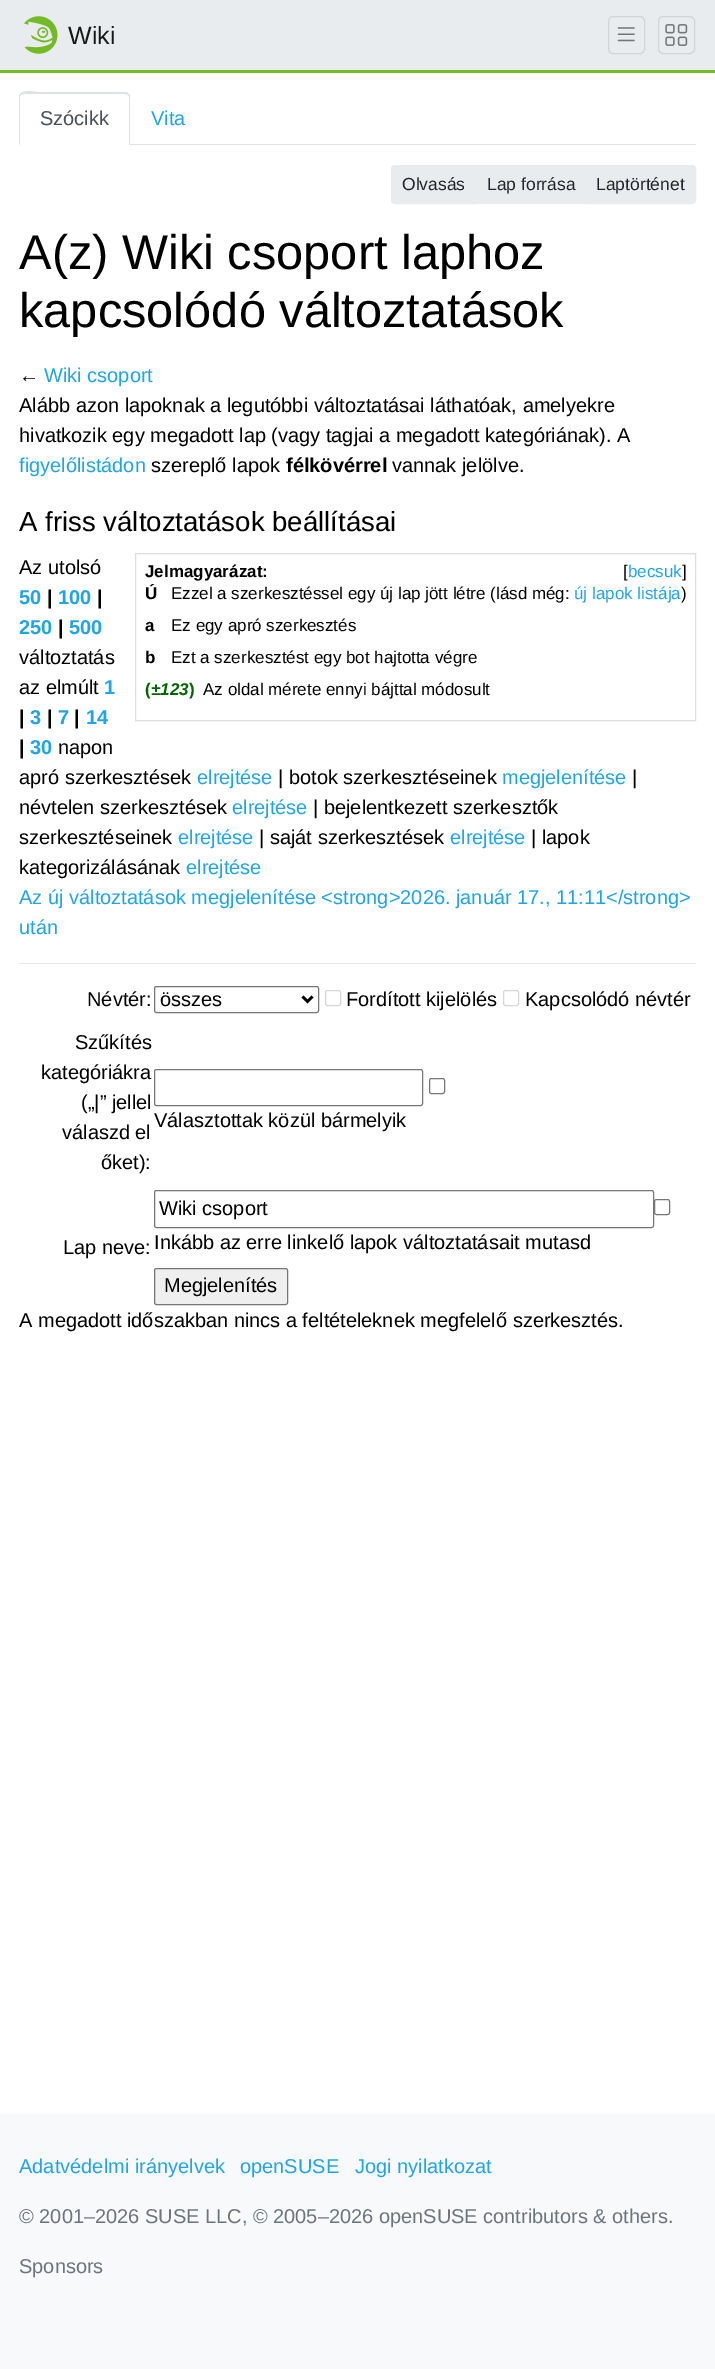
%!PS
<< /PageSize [715 2369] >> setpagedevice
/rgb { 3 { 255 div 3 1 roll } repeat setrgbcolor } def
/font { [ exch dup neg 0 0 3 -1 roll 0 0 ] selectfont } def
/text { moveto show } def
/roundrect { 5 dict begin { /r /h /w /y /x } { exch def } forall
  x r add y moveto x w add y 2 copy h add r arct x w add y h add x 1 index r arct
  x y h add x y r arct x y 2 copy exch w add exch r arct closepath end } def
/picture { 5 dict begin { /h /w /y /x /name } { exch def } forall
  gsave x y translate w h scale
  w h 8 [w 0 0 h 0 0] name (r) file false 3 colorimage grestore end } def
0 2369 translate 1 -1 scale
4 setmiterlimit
255 255 255 rgb
0 0 715 2369 rectfill
233 236 239 rgb
0 0 715 70 rectfill
115 186 37 rgb
0 70 715 3 rectfill
(img_01.rgb) 24 16 34 38 picture
210 212 215 rgb
608.5 16.5 36 37 4.5 roundrect stroke
(img_02.rgb) 617 27 18 15 picture
658.5 16.5 36 37 4.5 roundrect stroke
(img_03.rgb) 665 24 23 22 picture
222 226 230 rgb
130 144 566 1 rectfill
24 94 moveto -3 1 rlineto -1 -1 rlineto 4 -5 17 -2 19 -2 rcurveto 88 0 rlineto 2 2 rlineto -1 1 rlineto -3 -1 rlineto closepath fill
130 145 moveto 0 -47 rlineto 0 -2 0 -3 -1 -4 rcurveto -1 1 rlineto 1 2 rlineto 0 47 rlineto closepath fill
255 255 255 rgb
130 145 moveto -1 -1 rlineto -109 0 rlineto -1 1 rlineto closepath fill
222 226 230 rgb
19 145 moveto 0 -47 rlineto 0 -1 0 -3 1 -4 rcurveto 1 1 rlineto -1 2 rlineto 0 47 rlineto closepath fill
233 236 239 rgb
395 165.5 moveto 80.5 0 rlineto 0 38 rlineto -80.5 0 rlineto -2 0 -3.5 -1.5 -3.5 -3.5 rcurveto 0 -31 rlineto 0 -2 1.5 -3.5 3.5 -3.5 rcurveto closepath gsave fill grestore
stroke
476 165 109 39 rectfill
585.5 165.5 moveto 106.5 0 rlineto 2 0 3.5 1.5 3.5 3.5 rcurveto 0 31 rlineto 0 2 -1.5 3.5 -3.5 3.5 rcurveto -106.5 0 rlineto closepath gsave fill grestore
stroke
221 221 221 rgb
135.5 553.5 560 167 rectstroke
230 230 230 rgb
19 963 677 1 rectfill
118 118 118 rgb
154.5 986.5 164 26 2 roundrect stroke
0 0 0 rgb
2.5 setlinewidth
302.5 996.5 moveto 5 5 rlineto 5 -5 rlineto stroke
214 214 214 rgb
1 setlinewidth
325.5 990.5 15 15 2 roundrect stroke
503.5 990.5 15 15 2 roundrect stroke
118 118 118 rgb
154.5 1069.5 268 36 2 roundrect stroke
429.5 1078.5 15 15 2 roundrect stroke
154.5 1190.5 499 37 2 roundrect stroke
654.5 1199.5 15 15 2 roundrect stroke
239 239 239 rgb
154.5 1268.5 133 36 2 roundrect gsave fill grestore
118 118 118 rgb
stroke
248 249 250 rgb
0 2114 715 255 rectfill
/LiberationSans-Regular 25 font
23 24 24 rgb
(Wiki) 68 44 text
/LiberationSans-Regular 20 font
73 80 87 rgb
(Szócikk) 40 125 text
33 164 223 rgb
(Vita) 151 125 text
/LiberationSans-Regular 17.5 font
33 37 41 rgb
(Olvasás) 402 190 text
(Lap forrása) 487 190 text
(Laptörténet) 596 190 text
/LiberationSans-Regular 48.75 font
0 0 0 rgb
(A\(z\) Wiki csoport laphoz) 19 269 text
(kapcsolódó változtatások) 19 327 text
/LiberationSans-Regular 20 font
(←) 19 382 text
33 164 223 rgb
(Wiki csoport) 44 382 text
0 0 0 rgb
(Alább azon lapoknak a legutóbbi változtatásai láthatóak, amelyekre) 19 412 text
(hivatkozik egy megadott lap \(vagy tagjai a megadott kategóriának\). A) 19 442 text
33 164 223 rgb
(figyelőlistádon) 19 472 text
0 0 0 rgb
(szereplő lapok) 151 472 text
/LiberationSans-Bold 20 font
(félkövérrel) 286 472 text
/LiberationSans-Regular 20 font
(vannak jelölve.) 392 472 text
/LiberationSans-Regular 27.6 font
(A friss változtatások beállításai) 19 531 text
/LiberationSans-Regular 20 font
(Az utolsó) 19 574 text
/LiberationSans-Bold 17 font
(Jelmagyarázat:) 145 577 text
/LiberationSans-Regular 17 font
([) 623 577 text
33 164 223 rgb
(becsuk) 628 577 text
0 0 0 rgb
(]) 682 577 text
/LiberationSans-Bold 17 font
(Ú) 145 599 text
/LiberationSans-Regular 17 font
(Ezzel a szerkesztéssel egy új lap jött létre \(lásd még:) 171 599 text
33 164 223 rgb
(új lapok listája) 574 599 text
0 0 0 rgb
(\)) 681 599 text
/LiberationSans-Bold 17 font
(a) 145 631 text
/LiberationSans-Regular 17 font
(Ez egy apró szerkesztés) 171 631 text
/LiberationSans-Bold 17 font
(b) 145 663 text
/LiberationSans-Regular 17 font
(Ezt a szerkesztést egy bot hajtotta végre) 171 663 text
/LiberationSans-Bold 17 font
0 100 0 rgb
(\() 145 695 text
/LiberationSans-BoldItalic 17 font
(±123) 151 695 text
/LiberationSans-Bold 17 font
(\)) 189 695 text
/LiberationSans-Regular 17 font
0 0 0 rgb
(Az oldal mérete ennyi bájttal módosult) 203 695 text
/LiberationSans-Bold 20 font
33 164 223 rgb
(50) 19 604 text
0 0 0 rgb
(|) 47 604 text
33 164 223 rgb
(100) 58 604 text
0 0 0 rgb
(|) 97 604 text
33 164 223 rgb
(250) 19 634 text
0 0 0 rgb
(|) 58 634 text
33 164 223 rgb
(500) 69 634 text
/LiberationSans-Regular 20 font
0 0 0 rgb
(változtatás) 19 664 text
(az elmúlt) 19 694 text
/LiberationSans-Bold 20 font
33 164 223 rgb
(1) 104 694 text
0 0 0 rgb
(|) 19 724 text
33 164 223 rgb
(3) 30 724 text
0 0 0 rgb
(|) 47 724 text
33 164 223 rgb
(7) 58 724 text
0 0 0 rgb
(|) 74 724 text
33 164 223 rgb
(14) 86 724 text
0 0 0 rgb
(|) 19 754 text
33 164 223 rgb
(30) 30 754 text
/LiberationSans-Regular 20 font
0 0 0 rgb
(napon) 58 754 text
(apró szerkesztések) 19 784 text
33 164 223 rgb
(elrejtése) 197 784 text
0 0 0 rgb
(| botok szerkesztéseinek) 278 784 text
33 164 223 rgb
(megjelenítése) 502 784 text
0 0 0 rgb
(|) 632 784 text
(névtelen szerkesztések) 19 814 text
33 164 223 rgb
(elrejtése) 232 814 text
0 0 0 rgb
(| bejelentkezett szerkesztők) 313 814 text
(szerkesztéseinek) 19 844 text
33 164 223 rgb
(elrejtése) 178 844 text
0 0 0 rgb
(| saját szerkesztések) 259 844 text
33 164 223 rgb
(elrejtése) 450 844 text
0 0 0 rgb
(| lapok) 531 844 text
(kategorizálásának) 19 874 text
33 164 223 rgb
(elrejtése) 186 874 text
(Az új változtatások megjelenítése <strong>2026. január 17., 11:11</strong>) 19 904 text
(után) 19 934 text
0 0 0 rgb
(Névtér:) 87 1006 text
(összes) 160 1006 text
(Fordított kijelölés) 346 1006 text
(Kapcsolódó névtér) 525 1006 text
(Szűkítés) 75 1049 text
(kategóriákra) 41 1079 text
(\(„|” jellel) 81 1109 text
(válaszd el) 62 1139 text
(őket\):) 101 1169 text
(Választottak közül bármelyik) 154 1127 text
(Lap neve:) 63 1254 text
(Wiki csoport) 159 1215 text
(Inkább az erre linkelő lapok változtatásait mutasd) 154 1249 text
(Megjelenítés) 164 1292 text
(A megadott időszakban nincs a feltételeknek megfelelő szerkesztés.) 19 1327 text
33 164 223 rgb
(Adatvédelmi irányelvek) 19 2173 text
(openSUSE) 240 2173 text
(Jogi nyilatkozat) 355 2173 text
108 117 125 rgb
(© 2001–2026 SUSE LLC, © 2005–2026 openSUSE contributors & others.) 19 2223 text
(Sponsors) 19 2273 text
showpage
